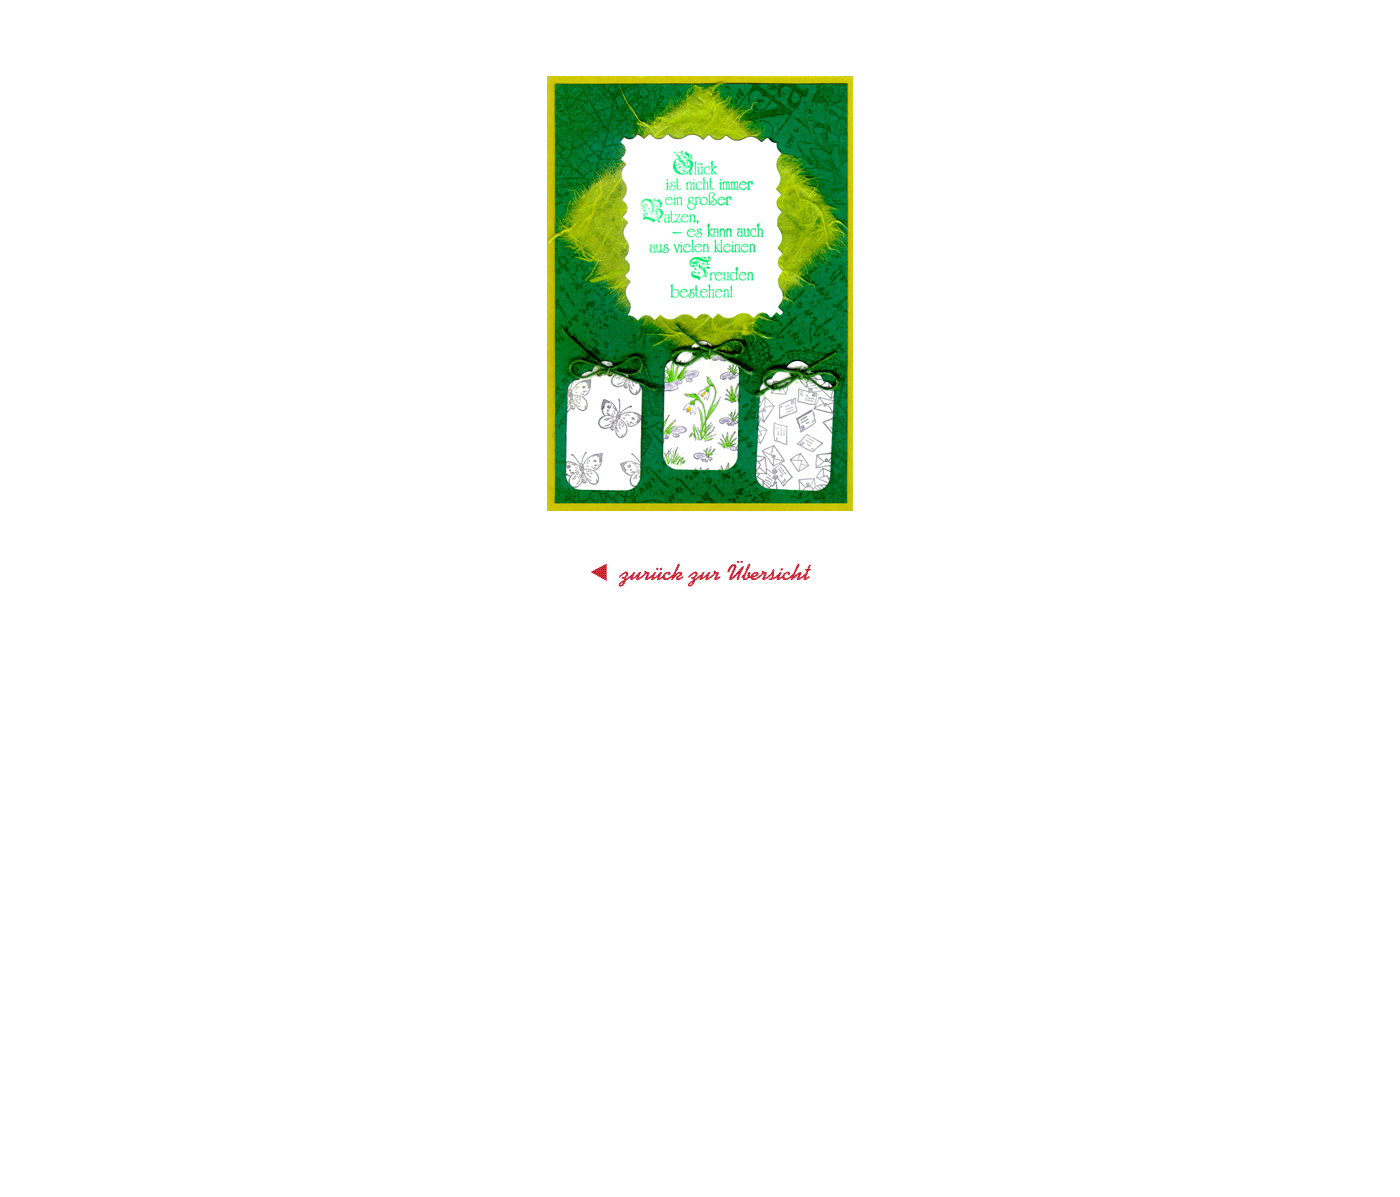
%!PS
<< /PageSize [1400 1197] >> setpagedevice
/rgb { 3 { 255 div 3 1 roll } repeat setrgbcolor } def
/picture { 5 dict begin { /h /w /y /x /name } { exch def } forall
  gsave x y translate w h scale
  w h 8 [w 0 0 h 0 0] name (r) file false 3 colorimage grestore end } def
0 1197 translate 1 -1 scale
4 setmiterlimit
255 255 255 rgb
0 0 1400 1197 rectfill
(img_01.rgb) 547 76 306 435 picture
(img_02.rgb) 591 561 220 26 picture
showpage
